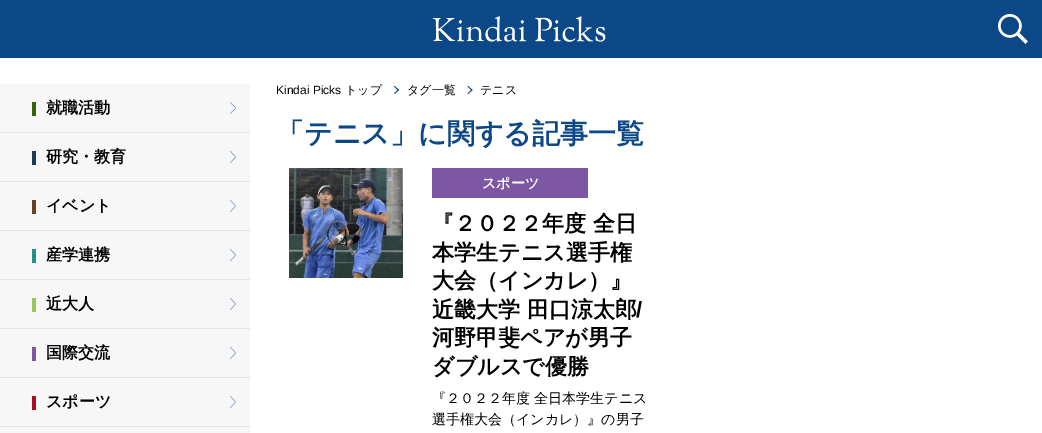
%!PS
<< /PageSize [1042 433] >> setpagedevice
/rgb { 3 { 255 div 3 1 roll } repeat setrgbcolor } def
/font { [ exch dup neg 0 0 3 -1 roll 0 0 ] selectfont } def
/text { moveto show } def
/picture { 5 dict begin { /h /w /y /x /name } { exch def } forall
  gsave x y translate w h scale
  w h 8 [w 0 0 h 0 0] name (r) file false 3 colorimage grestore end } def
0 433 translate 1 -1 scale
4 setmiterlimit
255 255 255 rgb
0 0 1042 433 rectfill
12 71 136 rgb
0 0 1042 58 rectfill
(img_01.rgb) 432 16 174 26 picture
(img_02.rgb) 998 14 30 30 picture
247 247 247 rgb
0 84 250 349 rectfill
228 228 228 rgb
0 132 250 1 rectfill
(img_03.rgb) 230 102 6 12 picture
56 99 4 rgb
32 102 4 14 rectfill
228 228 228 rgb
0 181 250 1 rectfill
(img_03.rgb) 230 151 6 12 picture
28 59 92 rgb
32 151 4 14 rectfill
228 228 228 rgb
0 230 250 1 rectfill
(img_03.rgb) 230 200 6 12 picture
103 65 38 rgb
32 200 4 14 rectfill
228 228 228 rgb
0 279 250 1 rectfill
(img_03.rgb) 230 249 6 12 picture
30 146 134 rgb
32 249 4 14 rectfill
228 228 228 rgb
0 328 250 1 rectfill
(img_03.rgb) 230 298 6 12 picture
150 199 87 rgb
32 298 4 14 rectfill
228 228 228 rgb
0 377 250 1 rectfill
(img_03.rgb) 230 347 6 12 picture
125 87 164 rgb
32 347 4 14 rectfill
228 228 228 rgb
0 426 250 1 rectfill
(img_03.rgb) 230 396 6 12 picture
168 13 35 rgb
32 396 4 14 rectfill
12 71 136 rgb
394 86.5 moveto 0.5 -0.5 rlineto 4.5 4 rlineto -1 0.5 rlineto closepath fill
394 93.5 moveto 4 -4 rlineto 1 0.5 rlineto -4.5 4 rlineto closepath fill
467.5 86.5 moveto 0.5 -0.5 rlineto 4.5 4 rlineto -1 0.5 rlineto closepath fill
467.5 93.5 moveto 4 -4 rlineto 1 0.5 rlineto -4.5 4 rlineto closepath fill
(img_04.rgb) 289 168 114 110 picture
125 87 164 rgb
432 168 156 30 rectfill
/WenQuanYiZenHei-Bold 16 font
0 0 0 rgb
(就職活動) 46 113 text
(研究・教育) 46 162 text
(イベント) 46 211 text
(産学連携) 46 260 text
(近大人) 46 309 text
(国際交流) 46 358 text
(スポーツ) 46 407 text
/LiberationSans-Regular 12 font
(Kindai Picks) 276 94 text
/WenQuanYiZenHei-Medium 12 font
(トップ) 345 94 text
(タグ一覧) 407 94 text
(テニス) 480 94 text
/WenQuanYiZenHei-Bold 28 font
12 71 136 rgb
(「テニス」に関する記事一覧) 276 143 text
/WenQuanYiZenHei-Bold 14 font
255 255 255 rgb
(スポーツ) 482 188 text
/WenQuanYiZenHei-Bold 22 font
0 0 0 rgb
(『２０２２年度 全日) 432 231 text
(本学生テニス選手権) 432 260 text
(大会（インカレ）』) 432 288 text
(近畿大学 田口涼太郎) 432 317 text
/LiberationSans-Bold 22 font
(/) 636 317 text
/WenQuanYiZenHei-Bold 22 font
(河野甲斐ペアが男子) 432 345 text
(ダブルスで優勝) 432 374 text
/WenQuanYiZenHei-Medium 14 font
(『２０２２年度 全日本学生テニス) 432 403 text
(選手権大会（インカレ）』の男子) 432 424 text
showpage
